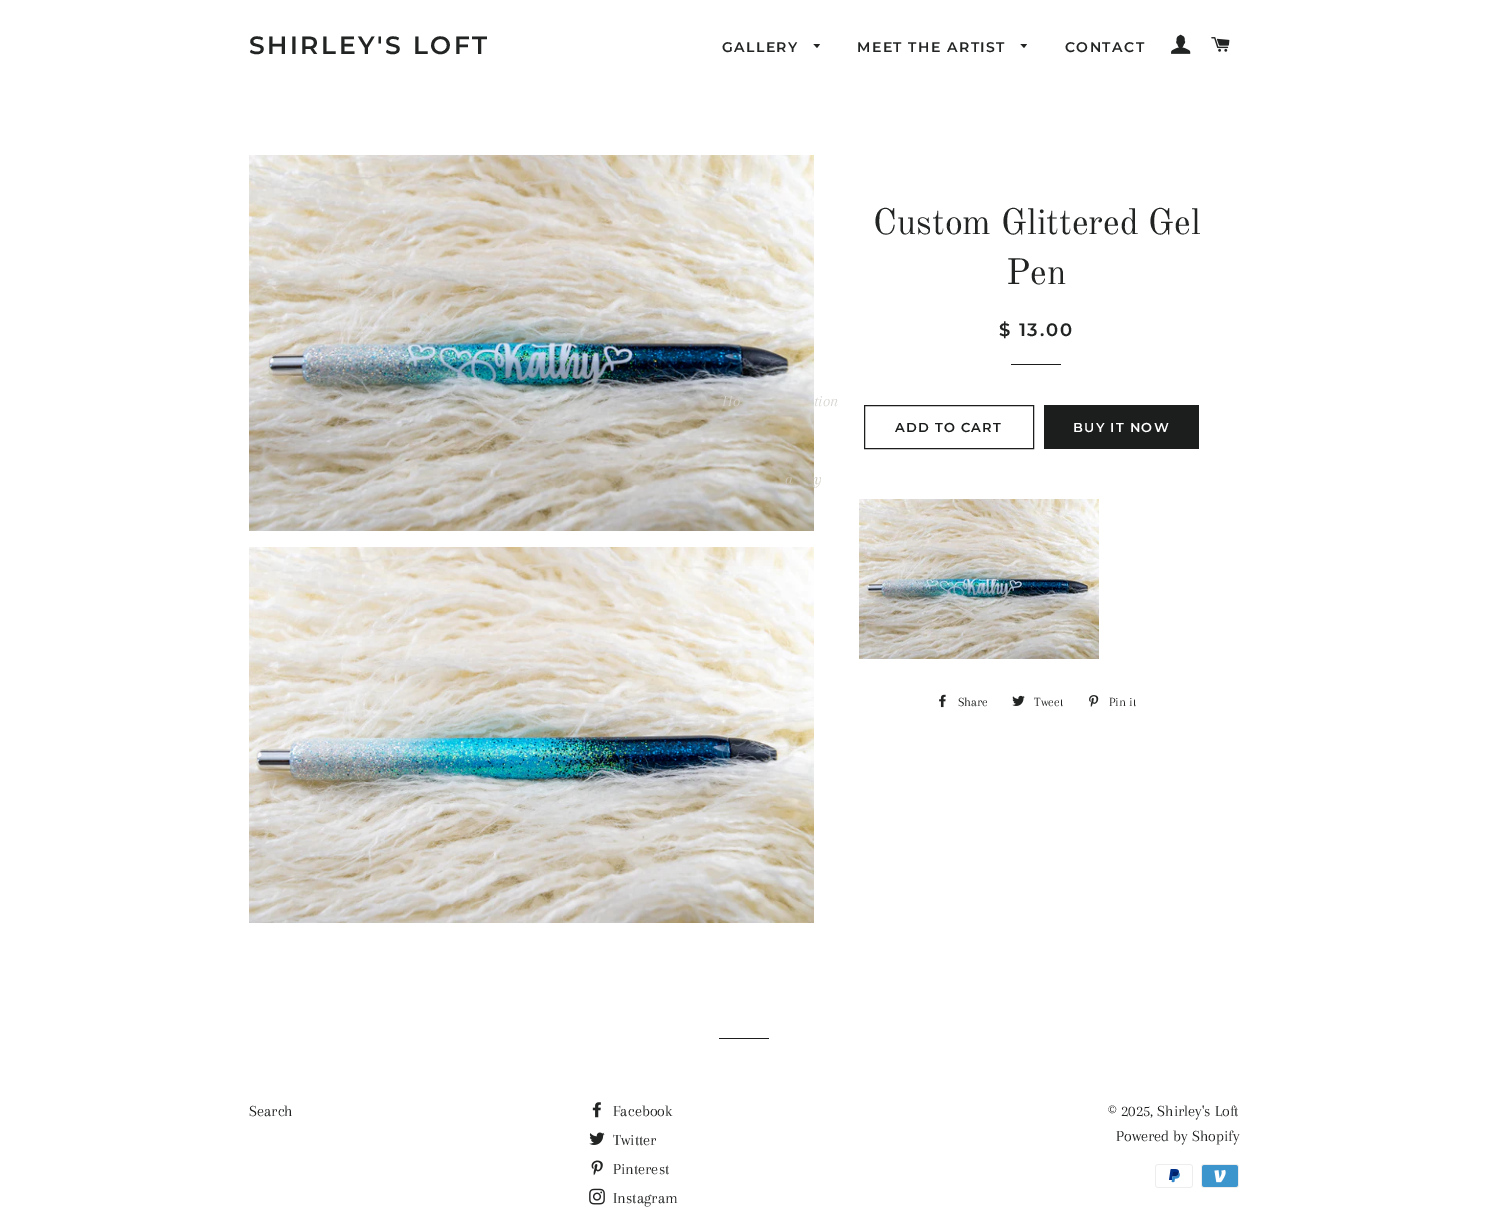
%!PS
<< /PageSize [1488 1211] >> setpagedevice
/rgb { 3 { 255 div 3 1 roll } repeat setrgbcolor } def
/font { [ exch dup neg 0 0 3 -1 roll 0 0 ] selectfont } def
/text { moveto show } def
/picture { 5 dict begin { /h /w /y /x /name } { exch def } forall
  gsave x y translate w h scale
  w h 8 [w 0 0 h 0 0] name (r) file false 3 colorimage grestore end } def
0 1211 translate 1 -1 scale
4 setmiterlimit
255 255 255 rgb
0 0 1488 1211 rectfill
34 35 35 rgb
813.5 44 moveto 3.5 4 rlineto 3 -4 rlineto closepath fill
1020.5 44 moveto 3.5 4 rlineto 3 -4 rlineto closepath fill
(img_01.rgb) 1171 34 20 20 picture
(img_02.rgb) 1211 37 19 15 picture
(img_03.rgb) 249 155 565 376 picture
(img_04.rgb) 249 547 565 376 picture
28 29 29 rgb
1011 364 50 1 rectfill
864.5 405.5 169 43 rectstroke
1044 405 155 44 rectfill
(img_05.rgb) 859 499 240 160 picture
(img_06.rgb) 939 694 7 14 picture
(img_07.rgb) 1012 695 13 11 picture
(img_08.rgb) 1089 695 10 12 picture
719 1038 50 1 rectfill
(img_09.rgb) 592 1102 9 16 picture
(img_10.rgb) 589 1132 16 13 picture
(img_11.rgb) 591 1160 12 16 picture
(img_12.rgb) 589 1188 16 17 picture
(img_13.rgb) 1155 1164 38 24 picture
(img_14.rgb) 1201 1164 38 24 picture
/Montserrat-SemiBold 25 font
34 35 35 rgb
249 54 moveto 2.5 0 (SHIRLEY'S LOFT) ashow
/Montserrat-SemiBold 14 font
722 52 moveto 1.4 0 (GALLERY) ashow
/Arapey-Italic 16 font
213 211 206 rgb
(Ho) 722 406 text
(tion) 814 406 text
203 198 186 rgb
(a) 785 484 text
(y) 814 484 text
/Montserrat-SemiBold 14 font
34 35 35 rgb
857 52 moveto 1.4 0 (MEET THE ARTIST) ashow
1065 52 moveto 1.4 0 (CONTACT) ashow
/OldStandardTT-Regular 36 font
(Custom Glittered Gel) 873 234 text
(Pen) 1006 284 text
/Montserrat-SemiBold 18 font
999 336 moveto 1.75 0 ($ 13.00) ashow
/Montserrat-SemiBold 13 font
28 29 29 rgb
895 432 moveto 1.25 0 (ADD TO CART) ashow
255 255 255 rgb
1073 432 moveto 1.25 0 (BUY IT NOW) ashow
/Arapey-Regular 13 font
34 35 35 rgb
(Share) 958 706 text
(Tweet) 1034 706 text
(Pin it) 1109 706 text
/Arapey-Regular 16 font
(Search) 249 1116 text
(Facebook) 613 1116 text
(Twitter) 613 1145 text
(Pinterest) 613 1174 text
(Instagram) 613 1203 text
(© 2025, Shirley's Loft) 1108 1116 text
(Powered by Shopify) 1116 1141 text
showpage
